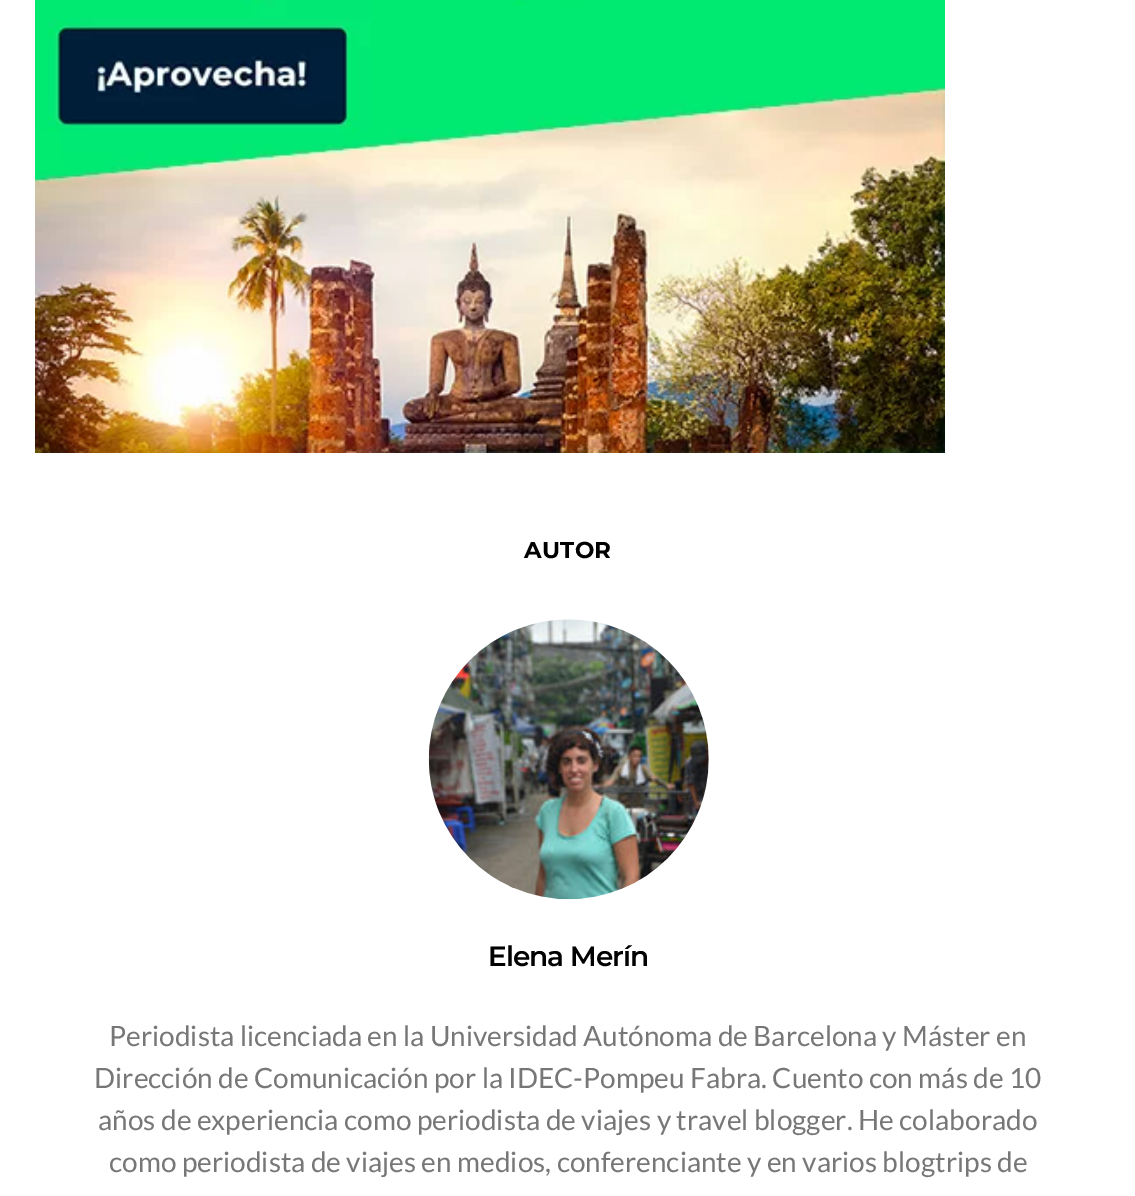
%!PS
<< /PageSize [1135 1196] >> setpagedevice
/rgb { 3 { 255 div 3 1 roll } repeat setrgbcolor } def
/font { [ exch dup neg 0 0 3 -1 roll 0 0 ] selectfont } def
/text { moveto show } def
/picture { 5 dict begin { /h /w /y /x /name } { exch def } forall
  gsave x y translate w h scale
  w h 8 [w 0 0 h 0 0] name (r) file false 3 colorimage grestore end } def
0 1196 translate 1 -1 scale
4 setmiterlimit
255 255 255 rgb
0 0 1135 1196 rectfill
(img_01.rgb) 35 0 910 453 picture
(img_02.rgb) 428 619 281 281 picture
/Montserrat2-Thin 23 font
0 0 0 rgb
524 558 moveto 0.25 0 (AUTOR) ashow
/Montserrat-Thin 28 font
488 966 moveto -1 0 (Elena Merín) ashow
/Lato-Regular 28 font
119 119 119 rgb
(Periodista licenciada en la Universidad Autónoma de Barcelona y Máster en) 109 1046 text
(Dirección de Comunicación por la IDEC-Pompeu Fabra. Cuento con más de 10) 94 1088 text
(años de experiencia como periodista de viajes y travel blogger. He colaborado) 98 1130 text
(como periodista de viajes en medios, conferenciante y en varios blogtrips de) 109 1172 text
showpage
